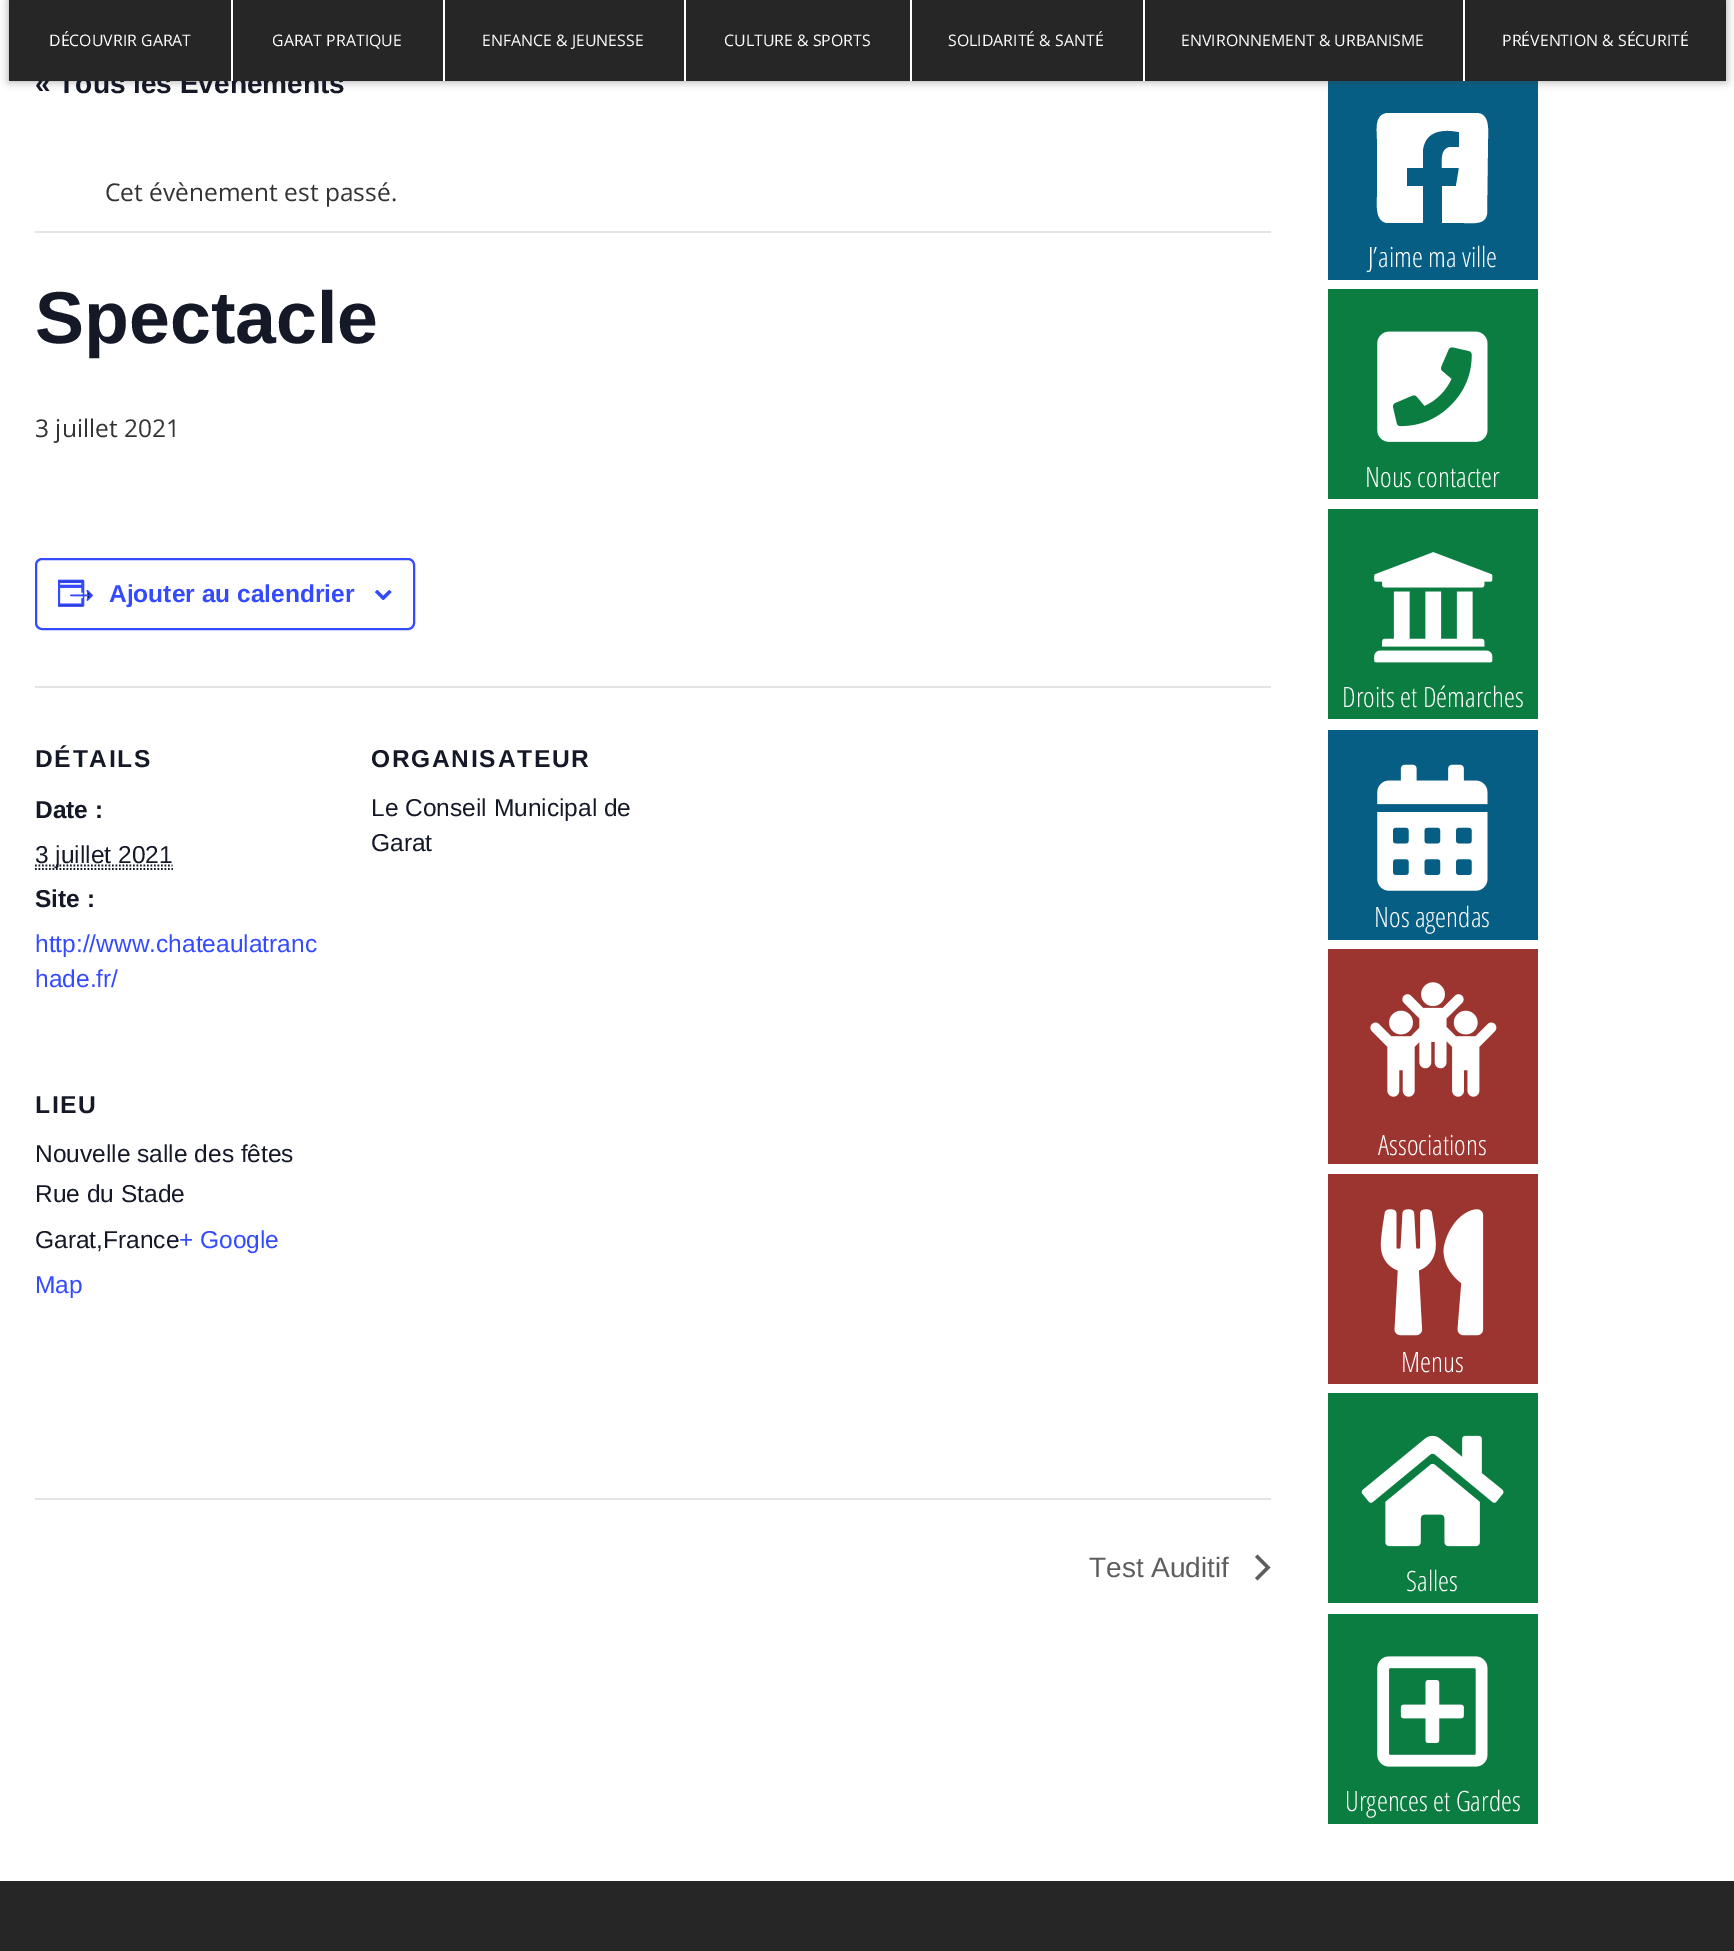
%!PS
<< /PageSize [1734 1951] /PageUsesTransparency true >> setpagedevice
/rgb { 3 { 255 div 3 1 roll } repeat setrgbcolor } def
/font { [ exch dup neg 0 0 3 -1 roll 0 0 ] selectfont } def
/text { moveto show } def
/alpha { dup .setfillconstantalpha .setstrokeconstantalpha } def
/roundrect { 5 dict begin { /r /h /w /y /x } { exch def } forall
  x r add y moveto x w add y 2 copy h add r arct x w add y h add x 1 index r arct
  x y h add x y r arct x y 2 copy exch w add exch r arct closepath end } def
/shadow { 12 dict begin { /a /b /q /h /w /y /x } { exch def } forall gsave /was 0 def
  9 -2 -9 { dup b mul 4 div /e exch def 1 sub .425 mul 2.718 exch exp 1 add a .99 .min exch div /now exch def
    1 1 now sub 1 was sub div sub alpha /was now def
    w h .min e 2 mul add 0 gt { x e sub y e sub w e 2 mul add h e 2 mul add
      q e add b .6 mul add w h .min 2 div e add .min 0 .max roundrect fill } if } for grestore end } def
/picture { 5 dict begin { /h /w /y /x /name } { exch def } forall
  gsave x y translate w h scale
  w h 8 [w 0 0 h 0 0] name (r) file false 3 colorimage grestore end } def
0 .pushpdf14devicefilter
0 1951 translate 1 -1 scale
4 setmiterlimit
255 255 255 rgb
0 0 1734 1951 rectfill
6 94 132 rgb
1328 81 210 199 rectfill
68 68 68 rgb
9 0 1717 81 0 4.5 0.5 shadow
228 228 228 rgb
35 231 1236 2 rectfill
51 74 255 rgb
2 setlinewidth
36 559 378 70 6 roundrect stroke
(img_01.rgb) 58 579 35 28 picture
(img_02.rgb) 375 590 17 10 picture
228 228 228 rgb
35 686 1236 2 rectfill
20 24 39 rgb
1.8 setlinewidth
[1.75 1.75] 0 setdash
35 869 moveto 138 0 rlineto stroke
35 865.5 moveto 137.5 0 rlineto stroke
228 228 228 rgb
35 1498 1236 2 rectfill
93 93 93 rgb
1255 1557 moveto 2.5 -2.5 rlineto 13 13 rlineto -13 13 rlineto -2.5 -2.5 rlineto 10.5 -10.5 rlineto closepath fill
255 255 255 rgb
1476 113 moveto 14 0 12 17 12 26 rcurveto -1 75 rlineto -2 11 -14 9 -23 9 rcurveto -22 0 rlineto 0 -37 rlineto 14 0 rlineto 3 -18 rlineto -17 0 rlineto 0 -7 -2 -19 8 -21 rcurveto 9 0 rlineto 0 -15 rlineto -15 -3 -33 -2 -36 17 rcurveto 0 19 rlineto -16 0 rlineto 0 18 rlineto 16 0 rlineto 0 37 rlineto -36 0 rlineto -12 -2 -10 -18 -10 -26 rcurveto 0 -58 rlineto 0 -9 -3 -25 11 -26 rcurveto closepath fill
11 125 65 rgb
1328 289 210 210 rectfill
(img_03.rgb) 1377 331 111 111 picture
1328 509 210 210 rectfill
(img_04.rgb) 1374 552 119 111 picture
6 94 132 rgb
1328 730 210 210 rectfill
(img_05.rgb) 1377 764 111 127 picture
156 52 48 rgb
1328 949 210 215 rectfill
(img_06.rgb) 1370 982 127 115 picture
1328 1174 210 210 rectfill
(img_07.rgb) 1380 1209 104 127 picture
11 125 65 rgb
1328 1393 210 210 rectfill
(img_08.rgb) 1361 1435 143 112 picture
1328 1614 210 210 rectfill
(img_09.rgb) 1377 1656 111 111 picture
38 38 38 rgb
0 1881 1734 70 rectfill
/LiberationSans-Bold 28 font
20 24 39 rgb
(« Tous les Évènements) 35 93 text
38 38 38 rgb
9 0 1717 81 rectfill
/OpenSans-Regular 15.9 font
255 255 255 rgb
(PRÉVENTION & SÉCURITÉ) 1502 46 text
(ENVIRONNEMENT & URBANISME) 1181 46 text
(SOLIDARITÉ & SANTÉ) 948 46 text
(CULTURE & SPORTS) 724 46 text
(ENFANCE & JEUNESSE) 482 46 text
(GARAT PRATIQUE) 272 46 text
(DÉCOUVRIR GARAT) 49 46 text
1463 0 2 81 rectfill
1143 0 2 81 rectfill
910 0 2 81 rectfill
684 0 2 81 rectfill
443 0 2 81 rectfill
231 0 2 81 rectfill
/OpenSans-Regular 24.5 font
51 51 51 rgb
(Cet évènement est passé.) 105 201 text
/LiberationSans-Bold 73.5 font
20 24 39 rgb
(Spectacle) 35 343 text
/OpenSans-Regular 24.5 font
51 51 51 rgb
(3 juillet 2021) 35 437 text
/LiberationSans-Bold 24.5 font
51 74 255 rgb
(Ajouter au calendrier) 109 602 text
20 24 39 rgb
35 767 moveto 1.75 0 (DÉTAILS) ashow
(Date :) 35 818 text
/LiberationSans-Regular 24.5 font
(3 juillet 2021) 35 863 text
/LiberationSans-Bold 24.5 font
(Site :) 35 907 text
/LiberationSans-Regular 24.5 font
51 74 255 rgb
(http://www.chateaulatranc) 35 952 text
(hade.fr/) 35 987 text
/LiberationSans-Bold 24.5 font
20 24 39 rgb
371 767 moveto 1.75 0 (ORGANISATEUR) ashow
/LiberationSans-Regular 24.5 font
(Le Conseil Municipal de) 371 816 text
(Garat) 371 851 text
/LiberationSans-Bold 24.5 font
35 1113 moveto 1.75 0 (LIEU) ashow
/LiberationSans-Regular 24.5 font
(Nouvelle salle des fêtes) 35 1162 text
(Rue du Stade) 35 1202 text
(Garat,France) 35 1248 text
51 74 255 rgb
(+ Google) 179 1248 text
(Map) 35 1293 text
/LiberationSans-Regular 28 font
93 93 93 rgb
(Test Auditif) 1089 1577 text
/OpenSansCondensed-Light 28 font
255 255 255 rgb
(J’aime ma ville) 1368 267 text
(Nous contacter) 1365 487 text
(Droits et Démarches) 1342 707 text
(Nos agendas) 1374 927 text
(Associations) 1378 1155 text
(Menus) 1401 1372 text
(Salles) 1406 1591 text
(Urgences et Gardes) 1345 1811 text
.poppdf14devicefilter showpage
